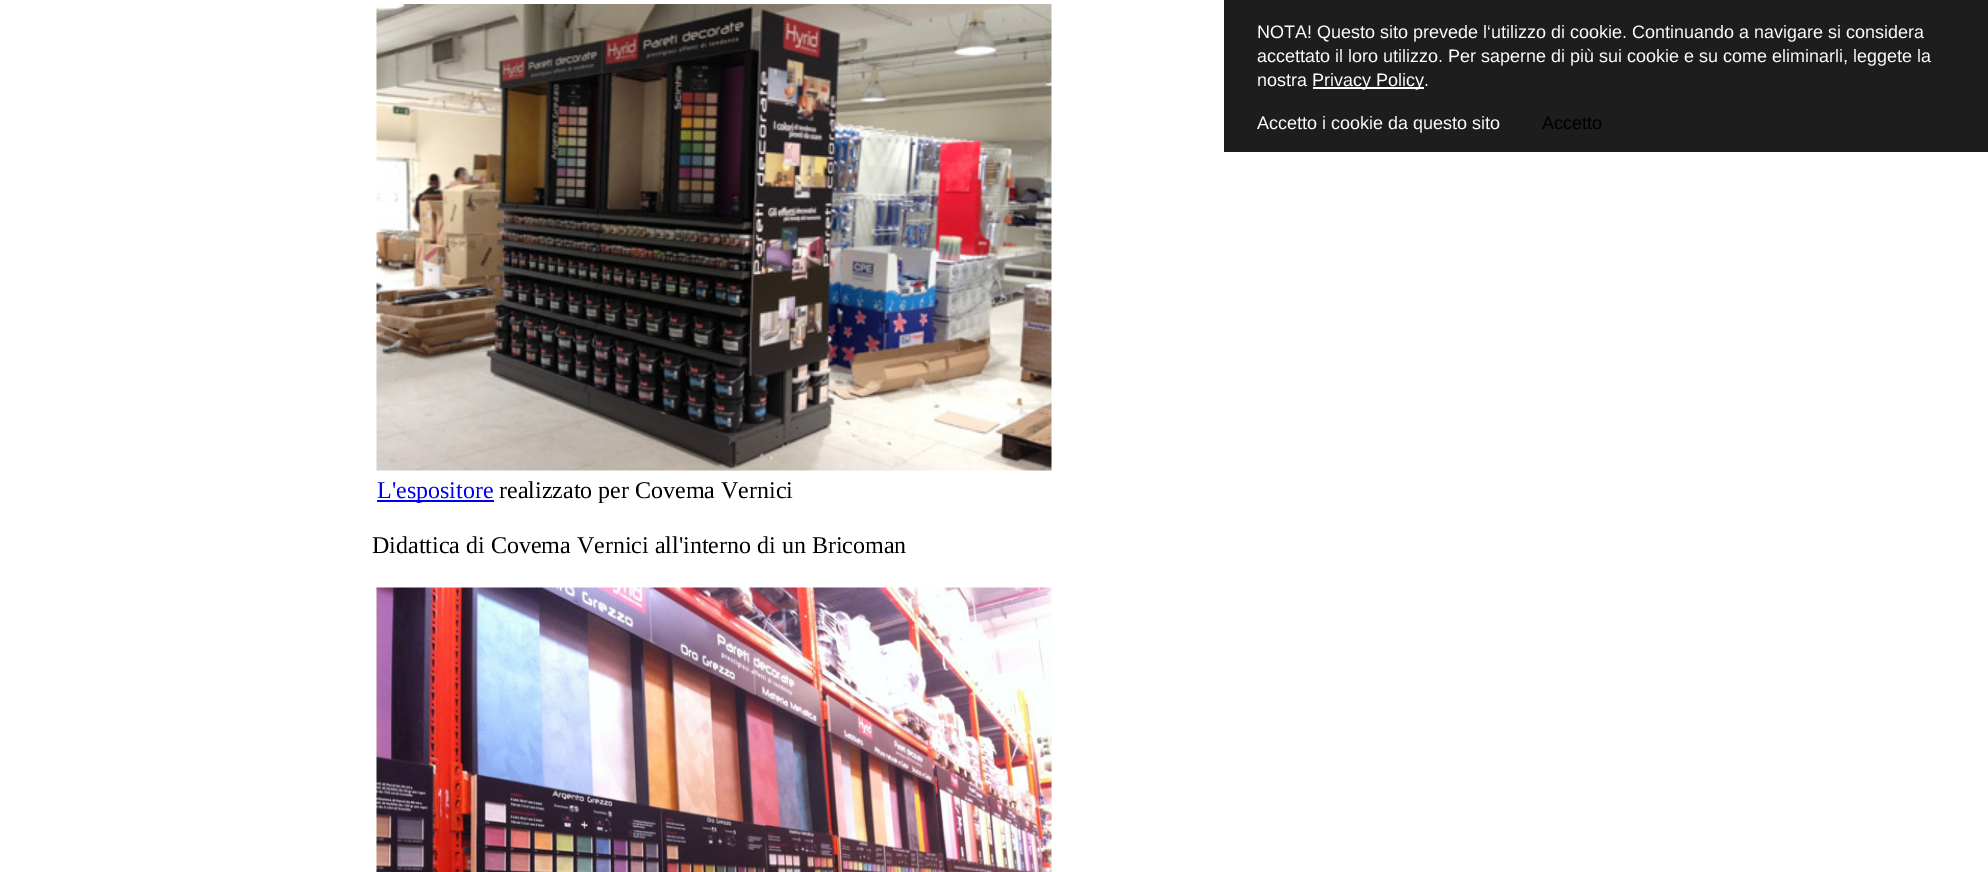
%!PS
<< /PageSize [1988 872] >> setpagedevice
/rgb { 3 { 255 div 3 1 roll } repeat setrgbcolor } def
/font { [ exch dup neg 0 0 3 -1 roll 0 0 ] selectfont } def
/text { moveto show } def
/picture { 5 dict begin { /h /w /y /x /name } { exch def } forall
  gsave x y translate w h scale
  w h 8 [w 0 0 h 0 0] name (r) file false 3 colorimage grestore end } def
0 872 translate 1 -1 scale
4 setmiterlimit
255 255 255 rgb
0 0 1988 872 rectfill
29 29 29 rgb
1224 0 764 152 rectfill
255 255 255 rgb
1313 87 111 2 rectfill
(img_01.rgb) 376 4 676 467 picture
0 0 238 rgb
377 500 117 2 rectfill
(img_02.rgb) 376 587 676 285 picture
/LiberationSans-Regular 18 font
255 255 255 rgb
(NOTA! Questo sito prevede l‘utilizzo di cookie. Continuando a navigare si considera) 1257 38 text
(accettato il loro utilizzo. Per saperne di più sui cookie e su come eliminarli, leggete la) 1257 62 text
(nostra) 1257 86 text
(Privacy Policy.) 1312 86 text
(Accetto i cookie da questo sito) 1257 129 text
0 0 0 rgb
(Accetto) 1542 129 text
/LiberationSerif-Regular 24 font
0 0 238 rgb
(L'espositore) 377 498 text
0 0 0 rgb
(realizzato per Covema Vernici) 499 498 text
(Didattica di Covema Vernici all'interno di un Bricoman) 372 553 text
showpage
